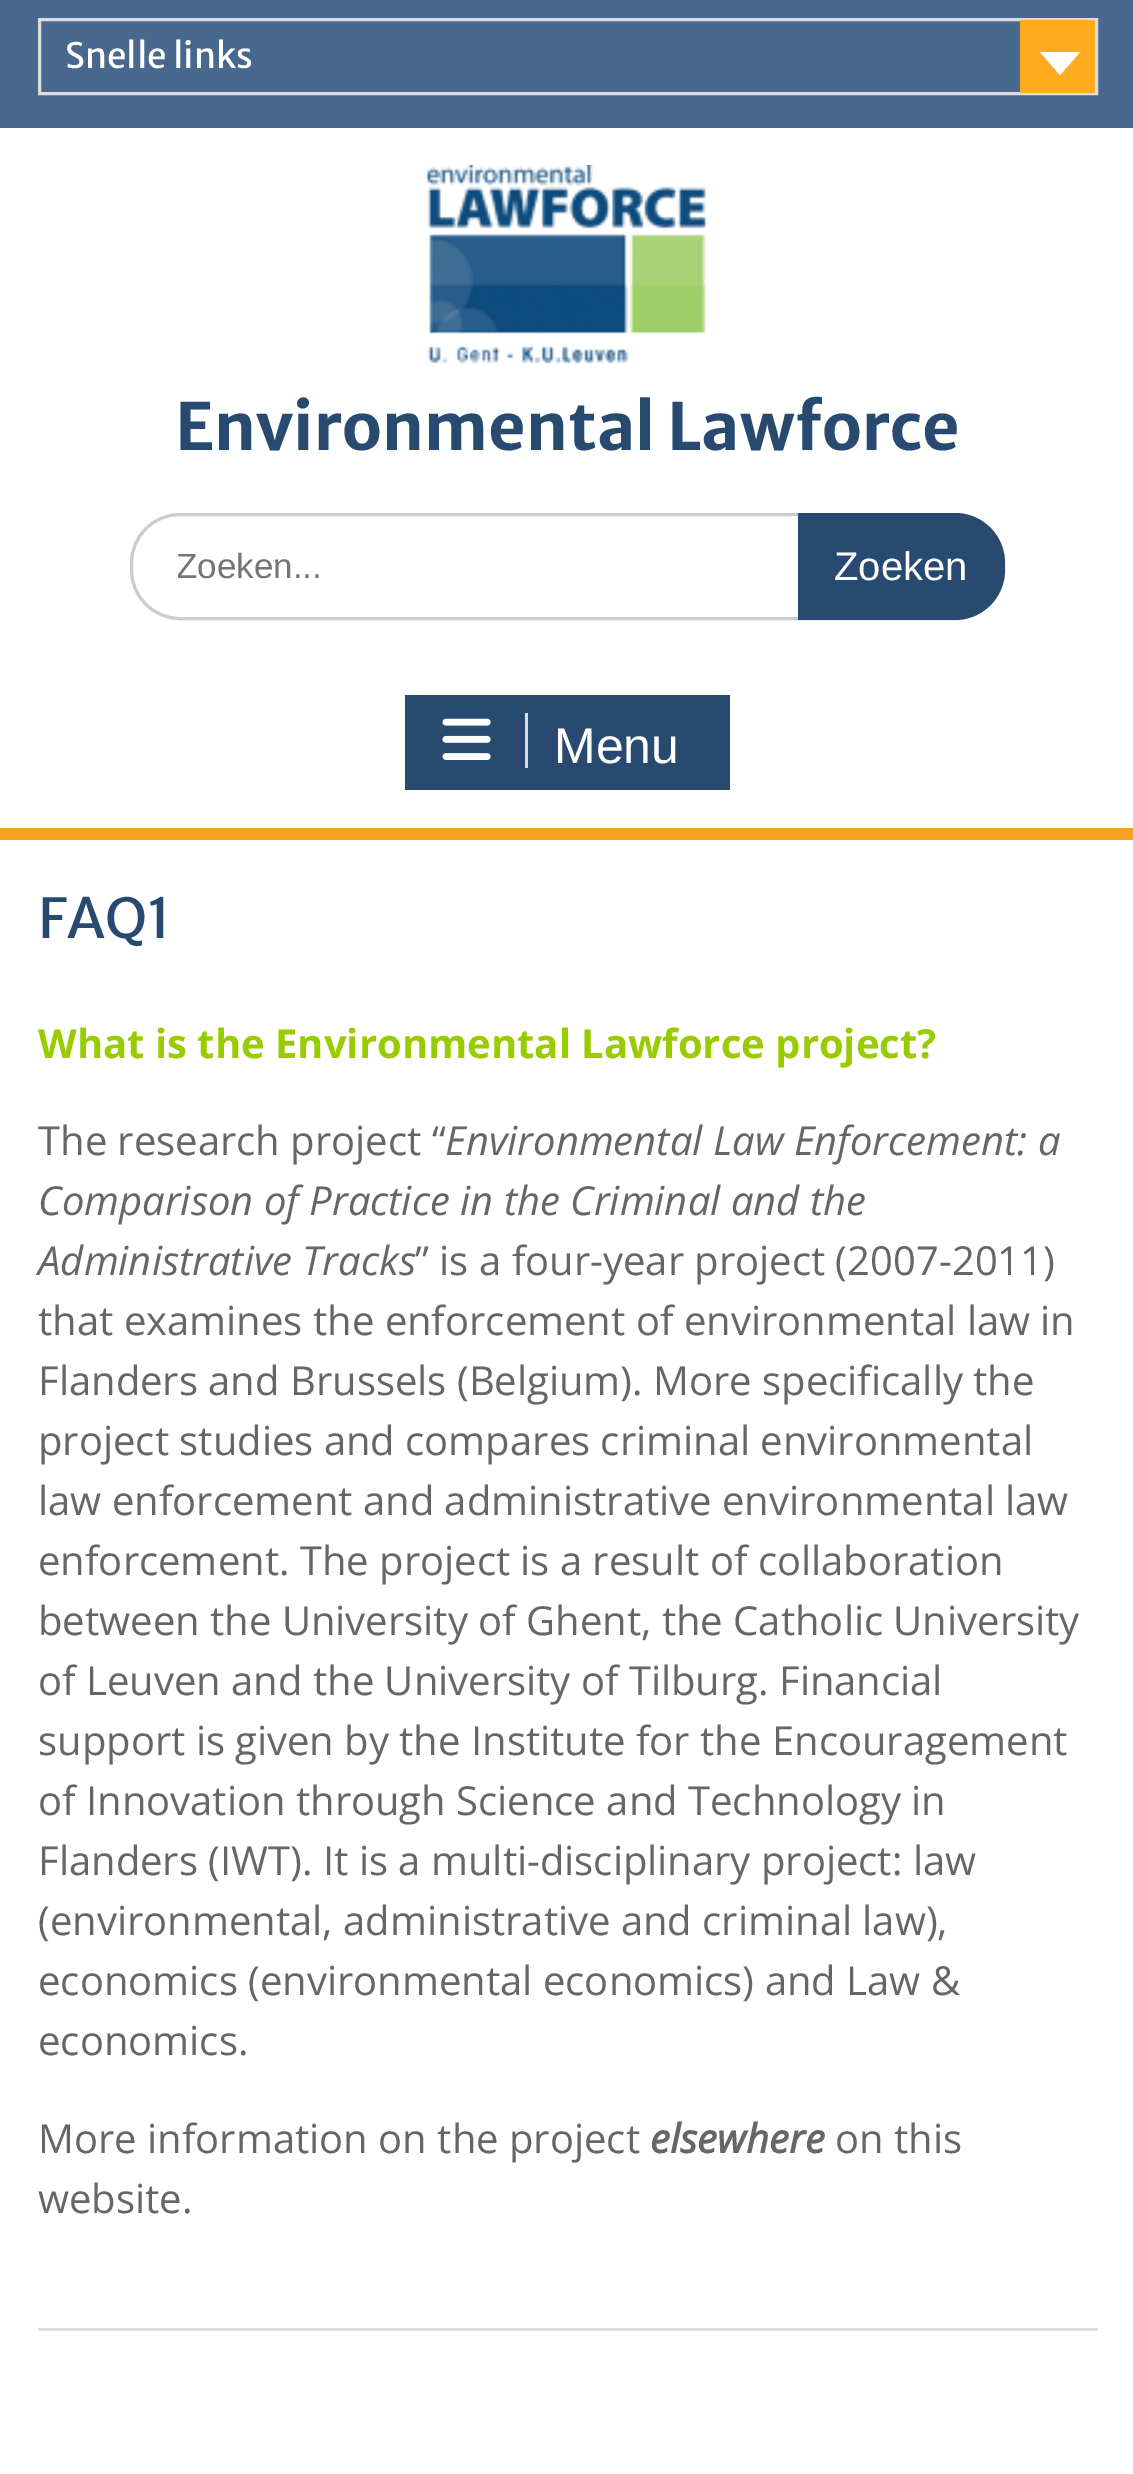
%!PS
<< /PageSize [1133 2474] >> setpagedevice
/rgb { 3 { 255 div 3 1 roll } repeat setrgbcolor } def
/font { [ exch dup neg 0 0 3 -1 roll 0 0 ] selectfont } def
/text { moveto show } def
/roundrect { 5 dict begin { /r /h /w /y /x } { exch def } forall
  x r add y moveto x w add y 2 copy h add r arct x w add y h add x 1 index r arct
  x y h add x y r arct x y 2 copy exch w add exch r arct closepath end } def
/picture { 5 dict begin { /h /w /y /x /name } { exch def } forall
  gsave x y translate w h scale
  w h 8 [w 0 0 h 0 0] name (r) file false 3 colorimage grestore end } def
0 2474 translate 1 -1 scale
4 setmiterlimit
255 255 255 rgb
0 0 1133 2474 rectfill
73 104 142 rgb
0 0 1133 128 rectfill
221 221 221 rgb
3 setlinewidth
39.5 19.5 1057 74 rectstroke
255 171 31 rgb
1020 20 75 73 rectfill
255 255 255 rgb
1040 52 moveto 40 0 rlineto -20 23 rlineto closepath fill
(img_01.rgb) 426 165 282 199 picture
204 204 204 rgb
131.5 514.5 872 104 48.5 roundrect stroke
41 74 112 rgb
798 513 moveto 157 0 rlineto 27.5 0 50 22.5 50 50 rcurveto 0 7 rlineto 0 27.5 -22.5 50 -50 50 rcurveto -157 0 rlineto closepath fill
244 160 36 rgb
0 828 1133 12 rectfill
41 74 112 rgb
405 695 325 95 rectfill
221 221 221 rgb
525 713 3 55 rectfill
(img_02.rgb) 442 718 49 42 picture
38 2328 1060 3 rectfill
/MerriweatherSans-Regular 35 font
255 255 255 rgb
(Snelle links) 65 68 text
/MerriweatherSans-Bold 65 font
41 74 112 rgb
(Environmental Lawforce) 175 450 text
gsave
178 545 597 40 rectclip
/LiberationSans-Regular 35 font
117 117 117 rgb
(Zoeken...) 176 578 text
grestore
/LiberationSans-Regular 40 font
255 255 255 rgb
(Zoeken) 834 580 text
/LiberationSans-Regular 50 font
(Menu) 554 763 text
/MerriweatherSans-Regular 55 font
41 74 112 rgb
(FAQ1) 38 938 text
/OpenSans-Bold 40 font
153 204 0 rgb
(What is the Environmental Lawforce project?) 38 1058 text
/OpenSans-Regular 40 font
102 102 102 rgb
(The research project “) 38 1155 text
/OpenSans-Italic 40 font
(Environmental Law Enforcement: a) 445 1155 text
(Comparison of Practice in the Criminal and the) 38 1215 text
(Administrative Tracks) 38 1275 text
/OpenSans-Regular 40 font
(” is a four-year project \(2007-2011\)) 415 1275 text
(that examines the enforcement of environmental law in) 38 1335 text
(Flanders and Brussels \(Belgium\). More specifically the) 38 1395 text
(project studies and compares criminal environmental) 38 1455 text
(law enforcement and administrative environmental law) 38 1515 text
(enforcement. The project is a result of collaboration) 38 1575 text
(between the University of Ghent, the Catholic University) 38 1635 text
(of Leuven and the University of Tilburg. Financial) 38 1695 text
(support is given by the Institute for the Encouragement) 38 1755 text
(of Innovation through Science and Technology in) 38 1815 text
(Flanders \(IWT\). It is a multi-disciplinary project: law) 38 1875 text
(\(environmental, administrative and criminal law\),) 38 1935 text
(economics \(environmental economics\) and Law &) 38 1995 text
(economics.) 38 2055 text
(More information on the project) 38 2153 text
/OpenSans-BoldItalic 40 font
(elsewhere) 650 2153 text
/OpenSans-Regular 40 font
(on this) 835 2153 text
(website.) 38 2213 text
showpage
